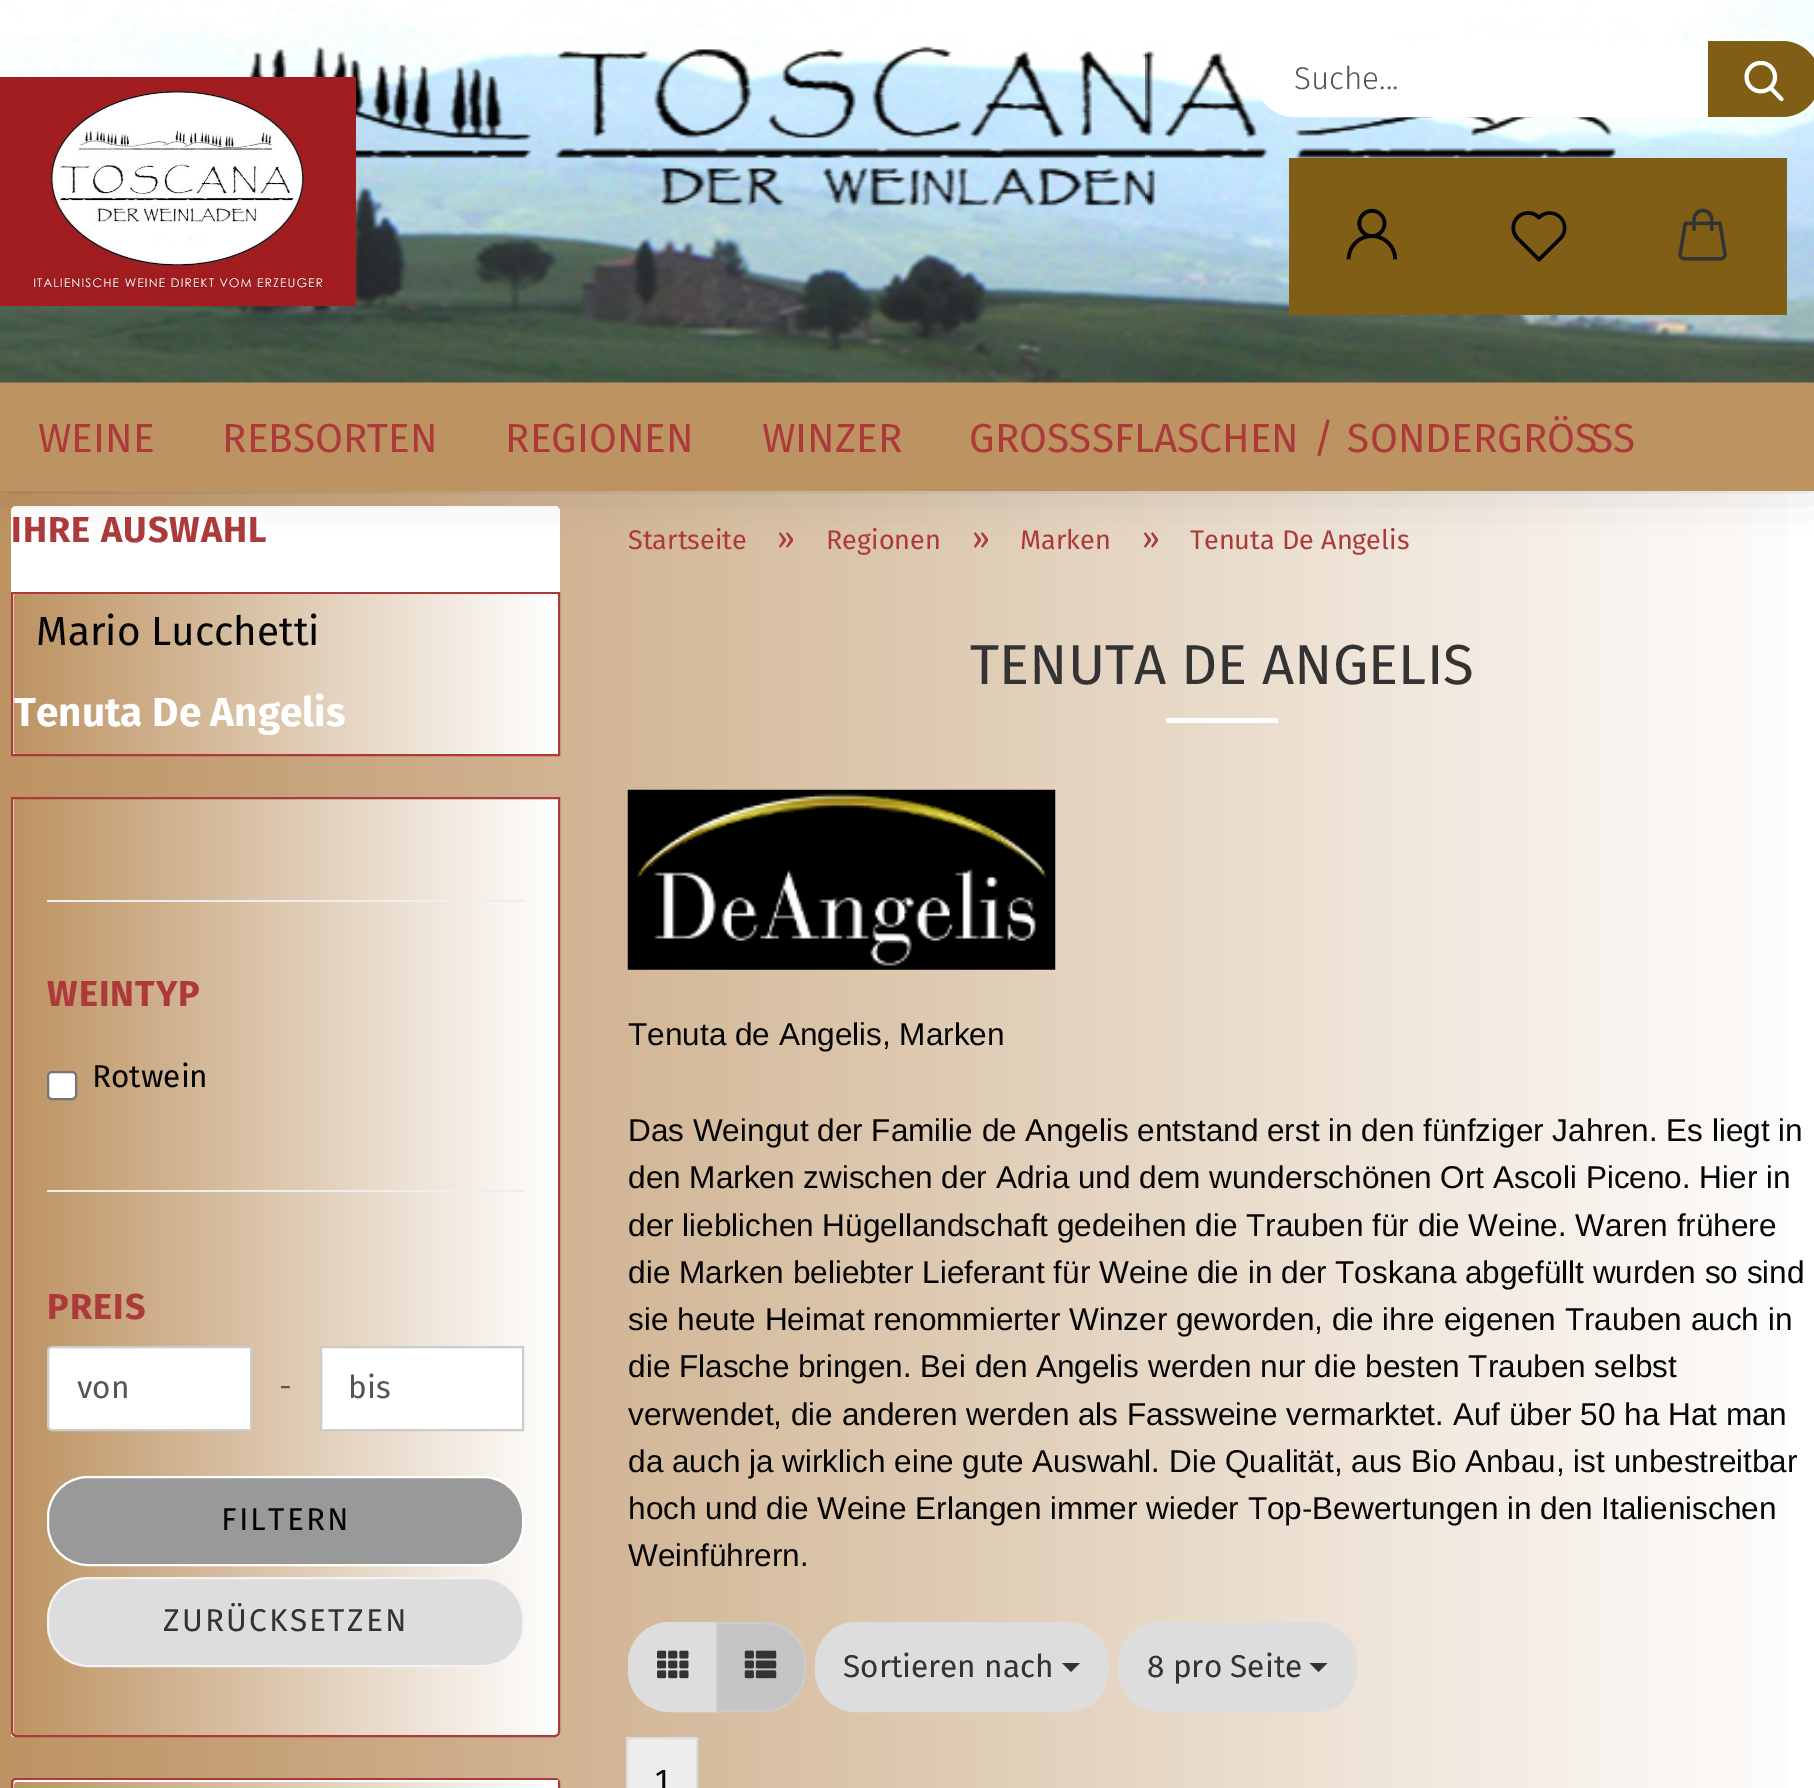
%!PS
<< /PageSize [1814 1788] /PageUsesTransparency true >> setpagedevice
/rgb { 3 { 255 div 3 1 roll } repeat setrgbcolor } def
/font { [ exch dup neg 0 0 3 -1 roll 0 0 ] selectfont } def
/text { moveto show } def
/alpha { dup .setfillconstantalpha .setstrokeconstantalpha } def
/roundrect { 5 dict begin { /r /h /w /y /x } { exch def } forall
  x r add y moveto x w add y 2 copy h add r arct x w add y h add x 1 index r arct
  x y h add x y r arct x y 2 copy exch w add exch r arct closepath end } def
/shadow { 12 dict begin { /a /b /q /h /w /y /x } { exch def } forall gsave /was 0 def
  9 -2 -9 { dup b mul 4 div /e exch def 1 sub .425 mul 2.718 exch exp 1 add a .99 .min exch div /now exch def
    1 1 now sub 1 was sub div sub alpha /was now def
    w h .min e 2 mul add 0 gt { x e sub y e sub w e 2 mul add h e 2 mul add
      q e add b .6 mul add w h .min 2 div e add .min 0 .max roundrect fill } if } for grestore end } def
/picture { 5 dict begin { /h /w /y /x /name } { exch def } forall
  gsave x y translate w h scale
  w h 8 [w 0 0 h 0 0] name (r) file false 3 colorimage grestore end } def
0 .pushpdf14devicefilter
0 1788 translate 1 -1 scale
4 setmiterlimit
255 255 255 rgb
0 0 1814 1788 rectfill
gsave 0 491 moveto 1787 0 rlineto 0 1297 rlineto -1787 0 rlineto closepath clip newpath
<< /ShadingType 2 /ColorSpace /DeviceRGB /Coords [0 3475 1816 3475] /Extend [true true] /Function << /FunctionType 2 /Domain [0 1] /C0 [0.741 0.576 0.384] /C1 [1 1 1] /N 1 >> >> shfill grestore
11 506 549 250 5 roundrect fill
0 0 0 rgb
0 0 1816 473 0 28 0.3 shadow
189 147 98 rgb
0 382 1814 109 rectfill
(img_01.rgb) 0 0 1814 383 picture
(img_02.rgb) 0 77 356 229 picture
255 255 255 rgb
1258.5 43.5 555 71 35.5 roundrect gsave fill grestore
5 setlinewidth
stroke
128 94 22 rgb
1708 41 moveto 74 0 rlineto 21 0 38 17 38 38 rcurveto 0 21 -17 38 -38 38 rcurveto -74 0 rlineto closepath fill
(img_03.rgb) 1744 61 40 40 picture
128 94 21 rgb
1289 158 498 157 rectfill
(img_04.rgb) 1346 208 51 52 picture
(img_05.rgb) 1511 211 56 51 picture
(img_06.rgb) 1678 208 49 53 picture
172 58 58 rgb
2 setlinewidth
12 593 547 162 rectstroke
gsave 19 594 moveto 534 0 rlineto 3 0 5 2 5 5 rcurveto 0 76 rlineto -544 0 rlineto 0 -76 rlineto 0 -3 2 -5 5 -5 rcurveto closepath clip newpath
<< /ShadingType 2 /ColorSpace /DeviceRGB /Coords [14 635 558 635] /Extend [true true] /Function << /FunctionType 2 /Domain [0 1] /C0 [0.741 0.576 0.384] /C1 [1 1 1] /N 1 >> >> shfill grestore
gsave 14 675 moveto 544 0 rlineto 0 74 rlineto 0 3 -2 5 -5 5 rcurveto -534 0 rlineto -3 0 -5 -2 -5 -5 rcurveto closepath clip newpath
<< /ShadingType 2 /ColorSpace /DeviceRGB /Coords [14 714 558 714] /Extend [true true] /Function << /FunctionType 2 /Domain [0 1] /C0 [0.741 0.576 0.384] /C1 [1 1 1] /N 1 >> >> shfill grestore
gsave
11 797 moveto 549 0 rlineto 0 935 rlineto 0 3 -2 5 -5 5 rcurveto -539 0 rlineto -3 0 -5 -2 -5 -5 rcurveto closepath clip newpath
gsave 11 797 moveto 3 0 rlineto 0 940 rlineto -3 0 rlineto closepath clip newpath
<< /ShadingType 2 /ColorSpace /DeviceRGB /Coords [-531 1267 14 1267] /Extend [true true] /Function << /FunctionType 2 /Domain [0 1] /C0 [0.741 0.576 0.384] /C1 [1 1 1] /N 1 >> >> shfill grestore
gsave 14 799 moveto 544 0 rlineto 0 938 rlineto -544 0 rlineto closepath clip newpath
<< /ShadingType 2 /ColorSpace /DeviceRGB /Coords [13 1267 558 1267] /Extend [true true] /Function << /FunctionType 2 /Domain [0 1] /C0 [0.741 0.576 0.384] /C1 [1 1 1] /N 1 >> >> shfill grestore
grestore
12 798 moveto 547 0 rlineto 0 934 rlineto 0 2 -2 4 -4 4 rcurveto -539 0 rlineto -2 0 -4 -2 -4 -4 rcurveto closepath stroke
238 238 238 rgb
47 900 477 2 rectfill
255 255 255 rgb
48 1072 28 27 4 roundrect gsave fill grestore
118 118 118 rgb
stroke
238 238 238 rgb
47 1190 477 2 rectfill
255 255 255 rgb
52 1347 moveto 199 0 rlineto 0 83 rlineto -199 0 rlineto -2 0 -4 -2 -4 -4 rcurveto 0 -75 rlineto 0 -2 2 -4 4 -4 rcurveto closepath gsave fill grestore
204 204 204 rgb
stroke
255 255 255 rgb
321 1347 moveto 202 0 rlineto 0 83 rlineto -202 0 rlineto closepath gsave fill grestore
204 204 204 rgb
stroke
153 153 153 rgb
48 1477 475 88 40 roundrect gsave fill grestore
255 255 255 rgb
stroke
221 221 221 rgb
48 1578 475 88 40 roundrect gsave fill grestore
243 243 243 rgb
stroke
255 255 255 rgb
12 1779 547 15 4 roundrect gsave fill grestore
172 58 58 rgb
stroke
gsave 16 1780 moveto 540 0 rlineto 1 0 2 1 2 2 rcurveto 0 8 rlineto -544 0 rlineto 0 -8 rlineto 0 -1 1 -2 2 -2 rcurveto closepath clip newpath
<< /ShadingType 2 /ColorSpace /DeviceRGB /Coords [14 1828 558 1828] /Extend [true true] /Function << /FunctionType 2 /Domain [0 1] /C0 [0.741 0.576 0.384] /C1 [1 1 1] /N 1 >> >> shfill grestore
255 255 255 rgb
16 1782 moveto 540 0 rlineto 1 0 2 1 2 2 rcurveto 0 -2 0 -4 -2 -4 rcurveto -540 0 rlineto -2 1 rlineto 0 3 rlineto 0 -1 1 -2 2 -2 rcurveto closepath fill
1166 718 112 5 rectfill
(img_07.rgb) 627 789 429 181 picture
221 221 221 rgb
669 1623 moveto 48 0 rlineto 0 88 rlineto -48 0 rlineto -22 0 -40 -18 -40 -40 rcurveto 0 -8 rlineto 0 -22 18 -40 40 -40 rcurveto closepath gsave fill grestore
stroke
(img_08.rgb) 657 1650 32 29 picture
196 196 196 rgb
717 1623 moveto 48 0 rlineto 22 0 40 18 40 40 rcurveto 0 8 rlineto 0 22 -18 40 -40 40 rcurveto -48 0 rlineto closepath gsave fill grestore
204 204 204 rgb
stroke
(img_09.rgb) 744 1650 33 29 picture
221 221 221 rgb
816 1623 292 88 40 roundrect gsave fill grestore
stroke
51 51 51 rgb
1062 1663 moveto 18 0 rlineto -9 9 rlineto closepath fill
221 221 221 rgb
1119 1623 237 88 40 roundrect gsave fill grestore
stroke
51 51 51 rgb
1309.5 1663 moveto 18 0 rlineto -9 9 rlineto closepath fill
238 238 238 rgb
627 1738 moveto 70 0 rlineto 0 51 rlineto -70 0 rlineto closepath gsave fill grestore
221 221 221 rgb
stroke
/FiraSans-Light 31.5 font
85 85 85 rgb
(Suche...) 1294 89 text
/FiraSans-Regular 40.5 font
172 58 58 rgb
(WEINE) 38 452 text
(REBSORTEN) 222 452 text
(REGIONEN) 505 452 text
(WINZER) 762 452 text
(GROSS) 969 452 text
1092 452 moveto 3 0 32 (SFLASCHEN / SONDERGR) widthshow
(ÖS) 1547 452 text
(SS) 1591 452 text
/FiraSans-Bold 36 font
11 542 moveto 1.1 0 (IHRE AUSWAHL) ashow
/FiraSans-Regular 40.5 font
5 5 5 rgb
(Mario Lucchetti) 36 645 text
/FiraSans-Bold 40.5 font
255 255 255 rgb
(Tenuta De Angelis) 14 726 text
/FiraSans-Bold 36 font
172 58 58 rgb
47 1006 moveto 1.1 0 (WEINTYP) ashow
/FiraSans-Regular 31.5 font
5 5 5 rgb
(Rotwein) 92 1087 text
/FiraSans-Bold 36 font
172 58 58 rgb
47 1319 moveto 1.1 0 (PREIS) ashow
/FiraSans-Regular 31.5 font
85 85 85 rgb
(von) 77 1398 text
(-) 279 1397 text
(bis) 348 1398 text
5 5 5 rgb
221 1530 moveto 2.25 0 (FILTERN) ashow
51 51 51 rgb
163 1631 moveto 2.25 0 (ZURÜCKSETZEN) ashow
/FiraSans-Regular 27 font
172 58 58 rgb
(Startseite) 628 549 text
/FiraSans-Regular 31.5 font
(») 777 549 text
/FiraSans-Regular 27 font
(Regionen) 826 549 text
/FiraSans-Regular 31.5 font
(») 972 549 text
/FiraSans-Regular 27 font
(Marken) 1020 549 text
/FiraSans-Regular 31.5 font
(») 1142 549 text
/FiraSans-Regular 27 font
(Tenuta De Angelis) 1190 549 text
/FiraSans-Regular 56.25 font
51 51 51 rgb
(TENUTA DE ANGELIS) 970 684 text
/LiberationSans-Regular 31.5 font
5 5 5 rgb
(Tenuta de Angelis, Marken) 628 1045 text
(Das Weingut der Familie de Angelis entstand erst in den fünfziger Jahren. Es liegt in) 628 1141 text
(den Marken zwischen der Adria und dem wunderschönen Ort Ascoli Piceno. Hier in) 628 1188 text
(der lieblichen Hügellandschaft gedeihen die Trauben für die Weine. Waren frühere) 628 1236 text
(die Marken beliebter Lieferant für Weine die in der Toskana abgefüllt wurden so sind) 628 1283 text
(sie heute Heimat renommierter Winzer geworden, die ihre eigenen Trauben auch in) 628 1330 text
(die Flasche bringen. Bei den Angelis werden nur die besten Trauben selbst) 628 1377 text
(verwendet, die anderen werden als Fassweine vermarktet. Auf über 50 ha Hat man) 628 1425 text
(da auch ja wirklich eine gute Auswahl. Die Qualität, aus Bio Anbau, ist unbestreitbar) 628 1472 text
(hoch und die Weine Erlangen immer wieder Top-Bewertungen in den Italienischen) 628 1519 text
(Weinführern.) 628 1566 text
/FiraSans-Regular 31.5 font
51 51 51 rgb
(Sortieren nach) 843 1677 text
(8 pro Seite) 1147 1677 text
5 5 5 rgb
(1) 655 1791 text
.poppdf14devicefilter showpage
